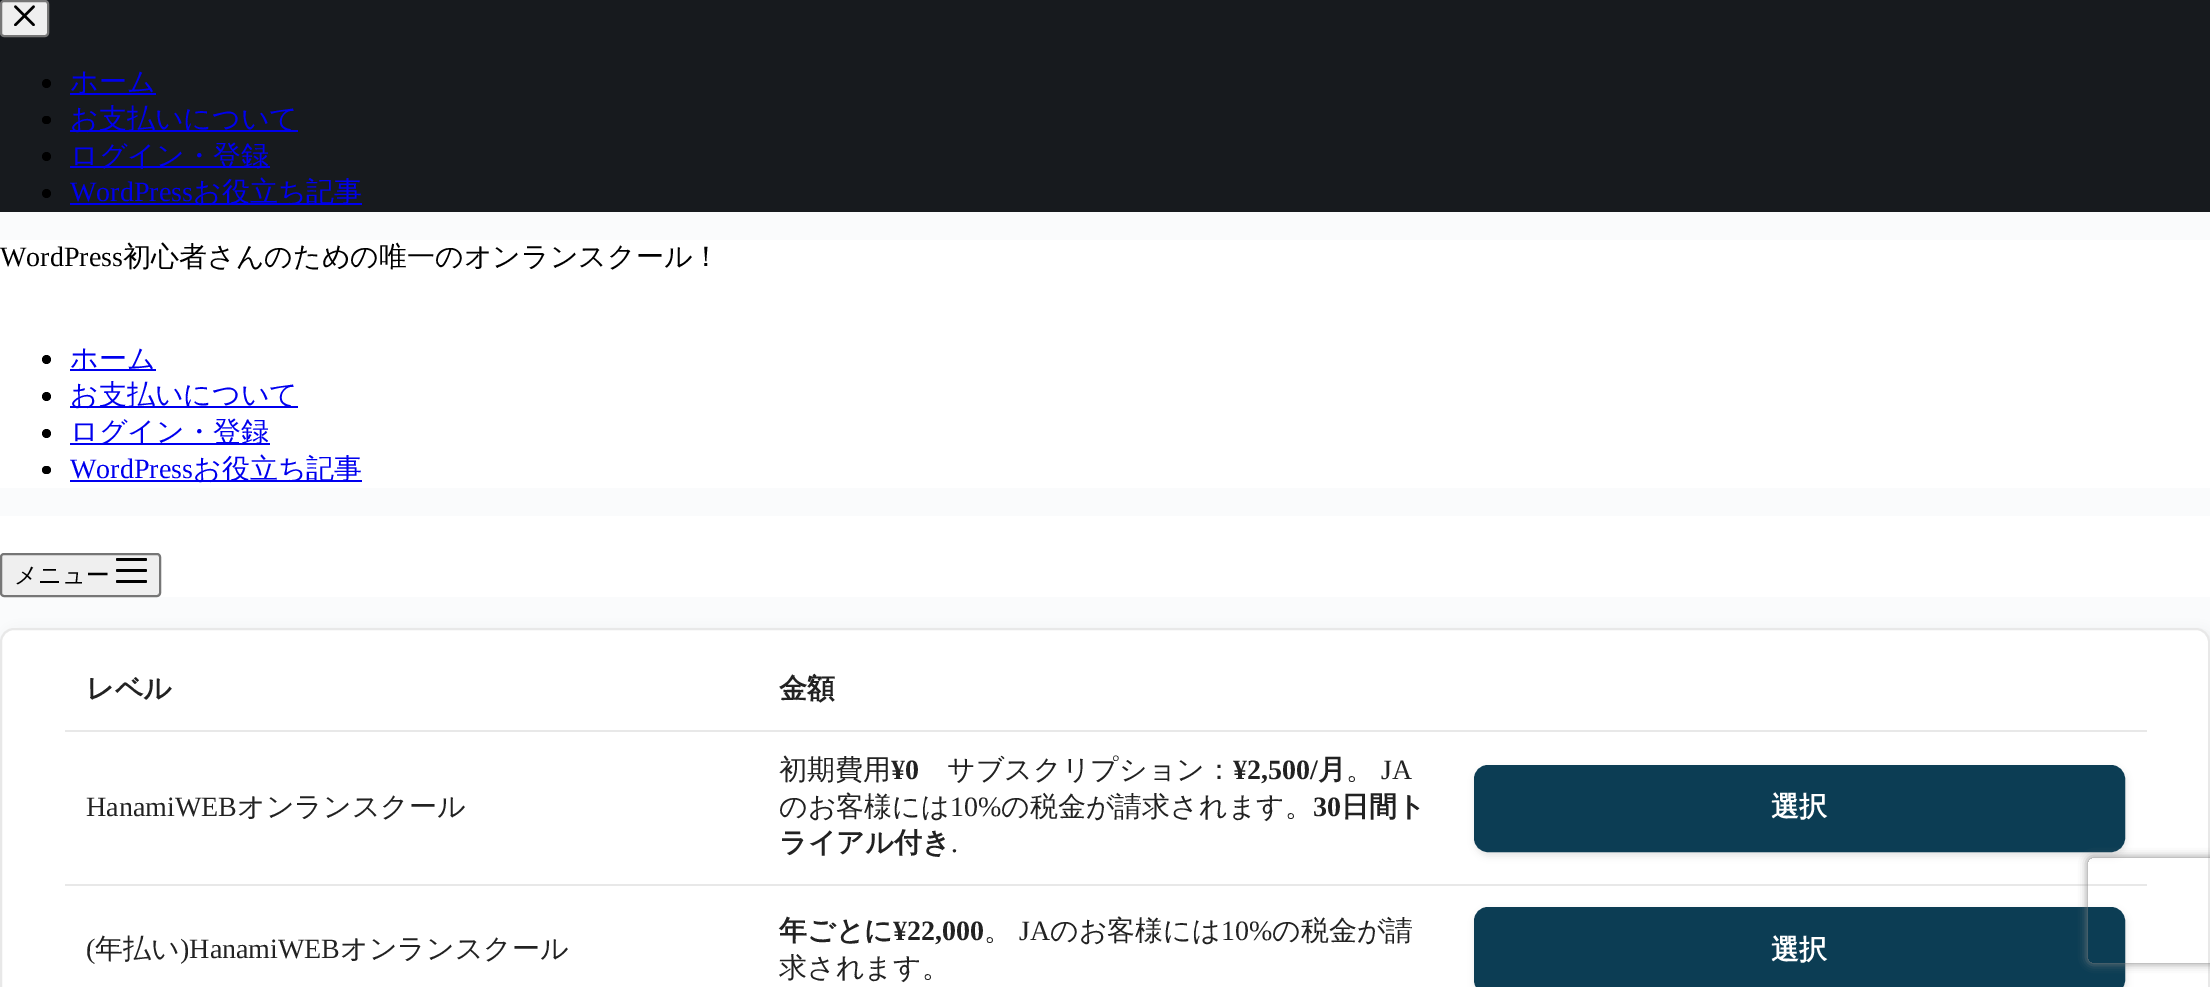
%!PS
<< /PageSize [2210 987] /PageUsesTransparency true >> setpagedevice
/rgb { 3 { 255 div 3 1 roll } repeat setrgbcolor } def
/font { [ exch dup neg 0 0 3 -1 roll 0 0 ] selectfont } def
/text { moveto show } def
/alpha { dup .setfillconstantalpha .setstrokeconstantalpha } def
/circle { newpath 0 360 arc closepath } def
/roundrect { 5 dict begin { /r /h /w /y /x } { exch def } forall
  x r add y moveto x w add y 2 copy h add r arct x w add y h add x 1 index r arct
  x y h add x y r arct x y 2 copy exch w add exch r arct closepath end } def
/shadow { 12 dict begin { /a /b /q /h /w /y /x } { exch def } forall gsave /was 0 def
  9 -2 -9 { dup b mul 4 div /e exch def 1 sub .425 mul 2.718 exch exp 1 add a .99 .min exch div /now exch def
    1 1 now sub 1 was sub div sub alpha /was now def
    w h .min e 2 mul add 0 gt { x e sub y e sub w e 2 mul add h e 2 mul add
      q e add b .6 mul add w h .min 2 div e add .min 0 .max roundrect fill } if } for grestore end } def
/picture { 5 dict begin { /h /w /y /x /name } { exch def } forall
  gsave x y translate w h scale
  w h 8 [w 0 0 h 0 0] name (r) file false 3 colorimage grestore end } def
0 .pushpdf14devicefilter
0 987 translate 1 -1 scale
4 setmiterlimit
250 251 252 rgb
0 0 2210 987 rectfill
23 26 30 rgb
0 0 2210 212 rectfill
239 239 239 rgb
1 1 47 35 3 roundrect gsave fill grestore
118 118 118 rgb
2 setlinewidth
stroke
(img_01.rgb) 14 5 21 21 picture
0 0 0 rgb
46.5 83.5 4.5 circle fill
0 0 238 rgb
70 93 86 2 rectfill
0 0 0 rgb
42 116 9 8 4 roundrect fill
0 0 238 rgb
70 130 228 2 rectfill
0 0 0 rgb
46.5 156.5 4.5 circle fill
0 0 238 rgb
70 166 200 2 rectfill
0 0 0 rgb
46.5 193.5 4.5 circle fill
0 0 238 rgb
70 203 292 2 rectfill
255 255 255 rgb
0 240 2210 248 rectfill
0 0 0 rgb
46.5 359.5 4.5 circle fill
0 0 238 rgb
70 369 86 2 rectfill
0 0 0 rgb
46.5 396.5 4.5 circle fill
0 0 238 rgb
70 406 228 2 rectfill
0 0 0 rgb
46.5 433.5 4.5 circle fill
0 0 238 rgb
70 443 200 2 rectfill
0 0 0 rgb
42 466 9 8 4 roundrect fill
0 0 238 rgb
70 480 292 2 rectfill
255 255 255 rgb
0 516 2210 81 rectfill
239 239 239 rgb
1 554 159 42 3 roundrect gsave fill grestore
118 118 118 rgb
stroke
0 0 0 rgb
116 558 31 3 1.5 roundrect fill
116 569 31 3 1.5 roundrect fill
116 580 31 3 1.5 roundrect fill
4 632 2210 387 14 6 0.07 shadow
255 255 255 rgb
1 629 2208 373 13 roundrect gsave fill grestore
232 232 232 rgb
stroke
65 730 2082 2 rectfill
0 0 0 rgb
1475 768 651 88 14 3.5 0.1 shadow
12 61 84 rgb
1475 766 649 85 13 roundrect gsave fill grestore
stroke
232 232 232 rgb
65 884 2082 2 rectfill
0 0 0 rgb
1475 910 651 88 14 3.5 0.1 shadow
12 61 84 rgb
1475 908 649 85 13 roundrect gsave fill grestore
stroke
gsave
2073 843 moveto 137 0 rlineto 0 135 rlineto -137 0 rlineto closepath 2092 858 moveto 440 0 rlineto 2 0 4 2 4 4 rcurveto 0 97 rlineto 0 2 -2 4 -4 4 rcurveto -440 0 rlineto -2 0 -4 -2 -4 -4 rcurveto 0 -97 rlineto 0 -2 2 -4 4 -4 rcurveto closepath eoclip newpath
128 128 128 rgb
2088 858 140 105 4 4.5 1 shadow
grestore
/WenQuanYiZenHei-Medium 28 font
0 0 238 rgb
(ホーム) 70 91 text
(お支払いについて) 70 128 text
(ログイン・登録) 70 165 text
/LiberationSerif-Regular 28 font
(WordPress) 70 201 text
/WenQuanYiZenHei-Medium 28 font
(お役立ち記事) 193 201 text
/LiberationSerif-Regular 28 font
0 0 0 rgb
(WordPress) 0 266 text
/WenQuanYiZenHei-Medium 28 font
(初心者さんのための唯一のオンランスクール！) 123 266 text
0 0 238 rgb
(ホーム) 70 368 text
(お支払いについて) 70 404 text
(ログイン・登録) 70 441 text
/LiberationSerif-Regular 28 font
(WordPress) 70 478 text
/WenQuanYiZenHei-Medium 28 font
(お役立ち記事) 193 478 text
/WenQuanYiZenHei-Medium 23.5 font
0 0 0 rgb
(メニュー) 14 583 text
/WenQuanYiZenHei-Bold 28 font
34 34 34 rgb
(レベル) 86 698 text
(金額) 779 698 text
/LiberationSerif-Regular 28 font
(HanamiWEB) 86 816 text
/WenQuanYiZenHei-Medium 28 font
(オンランスクール) 237 816 text
(初期費用) 779 779 text
/LiberationSerif-Bold 28 font
(¥0) 891 779 text
/WenQuanYiZenHei-Medium 28 font
(サブスクリプション：) 947 779 text
/LiberationSerif-Bold 28 font
(¥2,500/) 1233 779 text
/WenQuanYiZenHei-Bold 28 font
(月) 1318 779 text
/WenQuanYiZenHei-Medium 28 font
(。) 1346 779 text
/LiberationSerif-Regular 28 font
(JA) 1381 779 text
/WenQuanYiZenHei-Medium 28 font
(のお客様には) 779 816 text
/LiberationSerif-Regular 28 font
(10%) 950 816 text
/WenQuanYiZenHei-Medium 28 font
(の税金が請求されます。) 1001 816 text
/LiberationSerif-Bold 28 font
(30) 1313 816 text
/WenQuanYiZenHei-Bold 28 font
(日間ト) 1341 816 text
(ライアル付き) 779 852 text
/LiberationSerif-Regular 28 font
(.) 951 852 text
/WenQuanYiZenHei-Bold 28 font
255 255 255 rgb
(選択) 1771 816 text
/LiberationSerif-Regular 28 font
34 34 34 rgb
(\() 86 958 text
/WenQuanYiZenHei-Medium 28 font
(年払い) 95 958 text
/LiberationSerif-Regular 28 font
(\)HanamiWEB) 180 958 text
/WenQuanYiZenHei-Medium 28 font
(オンランスクール) 340 958 text
/WenQuanYiZenHei-Bold 28 font
(年ごとに) 779 940 text
/LiberationSerif-Bold 28 font
(¥22,000) 893 940 text
/WenQuanYiZenHei-Medium 28 font
(。) 984 940 text
/LiberationSerif-Regular 28 font
(JA) 1019 940 text
/WenQuanYiZenHei-Medium 28 font
(のお客様には) 1050 940 text
/LiberationSerif-Regular 28 font
(10%) 1221 940 text
/WenQuanYiZenHei-Medium 28 font
(の税金が請) 1272 940 text
(求されます。) 779 977 text
/WenQuanYiZenHei-Bold 28 font
255 255 255 rgb
(選択) 1771 959 text
.poppdf14devicefilter showpage
